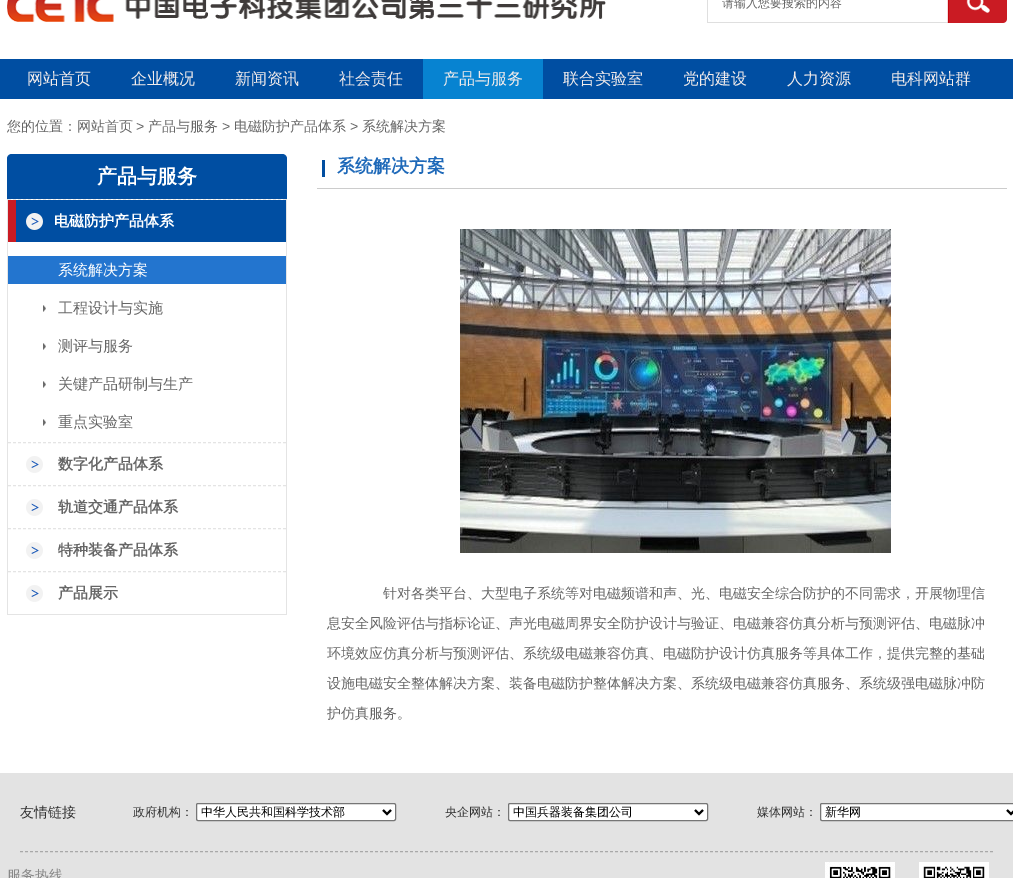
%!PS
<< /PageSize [1013 878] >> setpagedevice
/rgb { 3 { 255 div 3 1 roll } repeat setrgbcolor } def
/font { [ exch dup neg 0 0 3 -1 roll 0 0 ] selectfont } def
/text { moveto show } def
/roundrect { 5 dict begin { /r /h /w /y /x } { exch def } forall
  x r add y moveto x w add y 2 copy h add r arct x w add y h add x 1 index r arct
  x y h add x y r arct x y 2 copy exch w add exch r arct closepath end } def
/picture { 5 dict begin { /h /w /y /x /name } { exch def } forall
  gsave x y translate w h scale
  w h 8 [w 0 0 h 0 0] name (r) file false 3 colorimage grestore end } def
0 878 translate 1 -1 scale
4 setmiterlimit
255 255 255 rgb
0 0 1013 878 rectfill
(img_01.rgb) 7 0 599 22 picture
(img_02.rgb) 707 0 300 23 picture
0 78 162 rgb
0 59 1013 40 rectfill
7 131 209 rgb
423 59 120 40 rectfill
0 78 162 rgb
12 154 moveto 270 0 rlineto 3 0 5 2 5 5 rcurveto 0 40 rlineto -280 0 rlineto 0 -40 rlineto 0 -3 2 -5 5 -5 rcurveto closepath fill
228 228 228 rgb
286 199 1 416 rectfill
7 614 280 1 rectfill
7 199 1 416 rectfill
[3 2] 0 setdash
8 199.5 moveto 278 0 rlineto stroke
0 78 162 rgb
16 200 270 42 rectfill
(img_03.rgb) 26 213 17 17 picture
202 27 35 rgb
8 200 8 42 rectfill
35 117 207 rgb
8 256 278 28 rectfill
(img_04.rgb) 43 305 3 7 picture
(img_04.rgb) 43 343 3 7 picture
(img_04.rgb) 43 381 3 7 picture
(img_04.rgb) 43 419 3 7 picture
228 228 228 rgb
8 442.5 moveto 278 0 rlineto stroke
(img_05.rgb) 26 456 17 17 picture
8 485.5 moveto 278 0 rlineto stroke
(img_05.rgb) 26 499 17 17 picture
8 528.5 moveto 278 0 rlineto stroke
(img_05.rgb) 26 542 17 17 picture
8 571.5 moveto 278 0 rlineto stroke
(img_05.rgb) 26 585 17 17 picture
1 78 160 rgb
322 160 3 17 rectfill
204 204 204 rgb
317 188 690 1 rectfill
(img_06.rgb) 460 229 431 324 picture
227 227 227 rgb
0 773 1013 105 rectfill
169 169 169 rgb
20 851.5 moveto 973 0 rlineto stroke
255 255 255 rgb
196.5 803.5 199 17 1.5 roundrect gsave fill grestore
118 118 118 rgb
[] 0 setdash
stroke
0 0 0 rgb
2 setlinewidth
383 810 moveto 4 4 rlineto 4 -4 rlineto stroke
255 255 255 rgb
508.5 803.5 199 17 1.5 roundrect gsave fill grestore
118 118 118 rgb
1 setlinewidth
stroke
0 0 0 rgb
2 setlinewidth
695 810 moveto 4 4 rlineto 4 -4 rlineto stroke
255 255 255 rgb
820.5 803.5 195 17 1.5 roundrect gsave fill grestore
118 118 118 rgb
1 setlinewidth
stroke
0 0 0 rgb
2 setlinewidth
1007 810 moveto 4 4 rlineto 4 -4 rlineto stroke
(img_07.rgb) 825 862 70 16 picture
(img_08.rgb) 919 862 70 16 picture
/WenQuanYiZenHei-Medium 12 font
102 102 102 rgb
(请输入您要搜索的内容) 722 7 text
/WenQuanYiZenHei-Medium 16 font
243 236 235 rgb
(网站首页) 27 84 text
(企业概况) 131 84 text
(新闻资讯) 235 84 text
(社会责任) 339 84 text
(产品与服务) 443 84 text
(联合实验室) 563 84 text
(党的建设) 683 84 text
(人力资源) 787 84 text
(电科网站群) 891 84 text
/WenQuanYiZenHei-Medium 14 font
102 102 102 rgb
(您的位置：网站首页) 7 131 text
/LiberationSans-Regular 14 font
(>) 136 131 text
/WenQuanYiZenHei-Medium 14 font
(产品与服务) 148 131 text
/LiberationSans-Regular 14 font
(>) 222 131 text
/WenQuanYiZenHei-Medium 14 font
(电磁防护产品体系) 234 131 text
/LiberationSans-Regular 14 font
(>) 350 131 text
/WenQuanYiZenHei-Medium 14 font
(系统解决方案) 362 131 text
/WenQuanYiZenHei-Bold 20 font
255 255 255 rgb
(产品与服务) 97 183 text
/WenQuanYiZenHei-Bold 15 font
(电磁防护产品体系) 54 226 text
/WenQuanYiZenHei-Medium 15 font
(系统解决方案) 58 275 text
102 102 102 rgb
(工程设计与实施) 58 313 text
(测评与服务) 58 351 text
(关键产品研制与生产) 58 389 text
(重点实验室) 58 427 text
/WenQuanYiZenHei-Bold 15 font
(数字化产品体系) 58 469 text
(轨道交通产品体系) 58 512 text
(特种装备产品体系) 58 555 text
(产品展示) 58 598 text
/WenQuanYiZenHei-Bold 18 font
30 105 185 rgb
(系统解决方案) 337 172 text
/WenQuanYiZenHei-Medium 14 font
102 102 102 rgb
(针对各类平台、大型电子系统等对电磁频谱和声、光、电磁安全综合防护的不同需求，开展物理信) 383 598 text
(息安全风险评估与指标论证、声光电磁周界安全防护设计与验证、电磁兼容仿真分析与预测评估、电磁脉冲) 327 628 text
(环境效应仿真分析与预测评估、系统级电磁兼容仿真、电磁防护设计仿真服务等具体工作，提供完整的基础) 327 658 text
(设施电磁安全整体解决方案、装备电磁防护整体解决方案、系统级电磁兼容仿真服务、系统级强电磁脉冲防) 327 688 text
(护仿真服务。) 327 718 text
51 51 51 rgb
(友情链接) 20 817 text
/WenQuanYiZenHei-Medium 12 font
(政府机构：) 133 816 text
0 0 0 rgb
(中华人民共和国科学技术部) 201 816 text
51 51 51 rgb
(央企网站：) 445 816 text
0 0 0 rgb
(中国兵器装备集团公司) 513 816 text
51 51 51 rgb
(媒体网站：) 757 816 text
0 0 0 rgb
(新华网) 825 816 text
/WenQuanYiZenHei-Medium 14 font
136 136 136 rgb
(服务热线) 7 880 text
showpage
